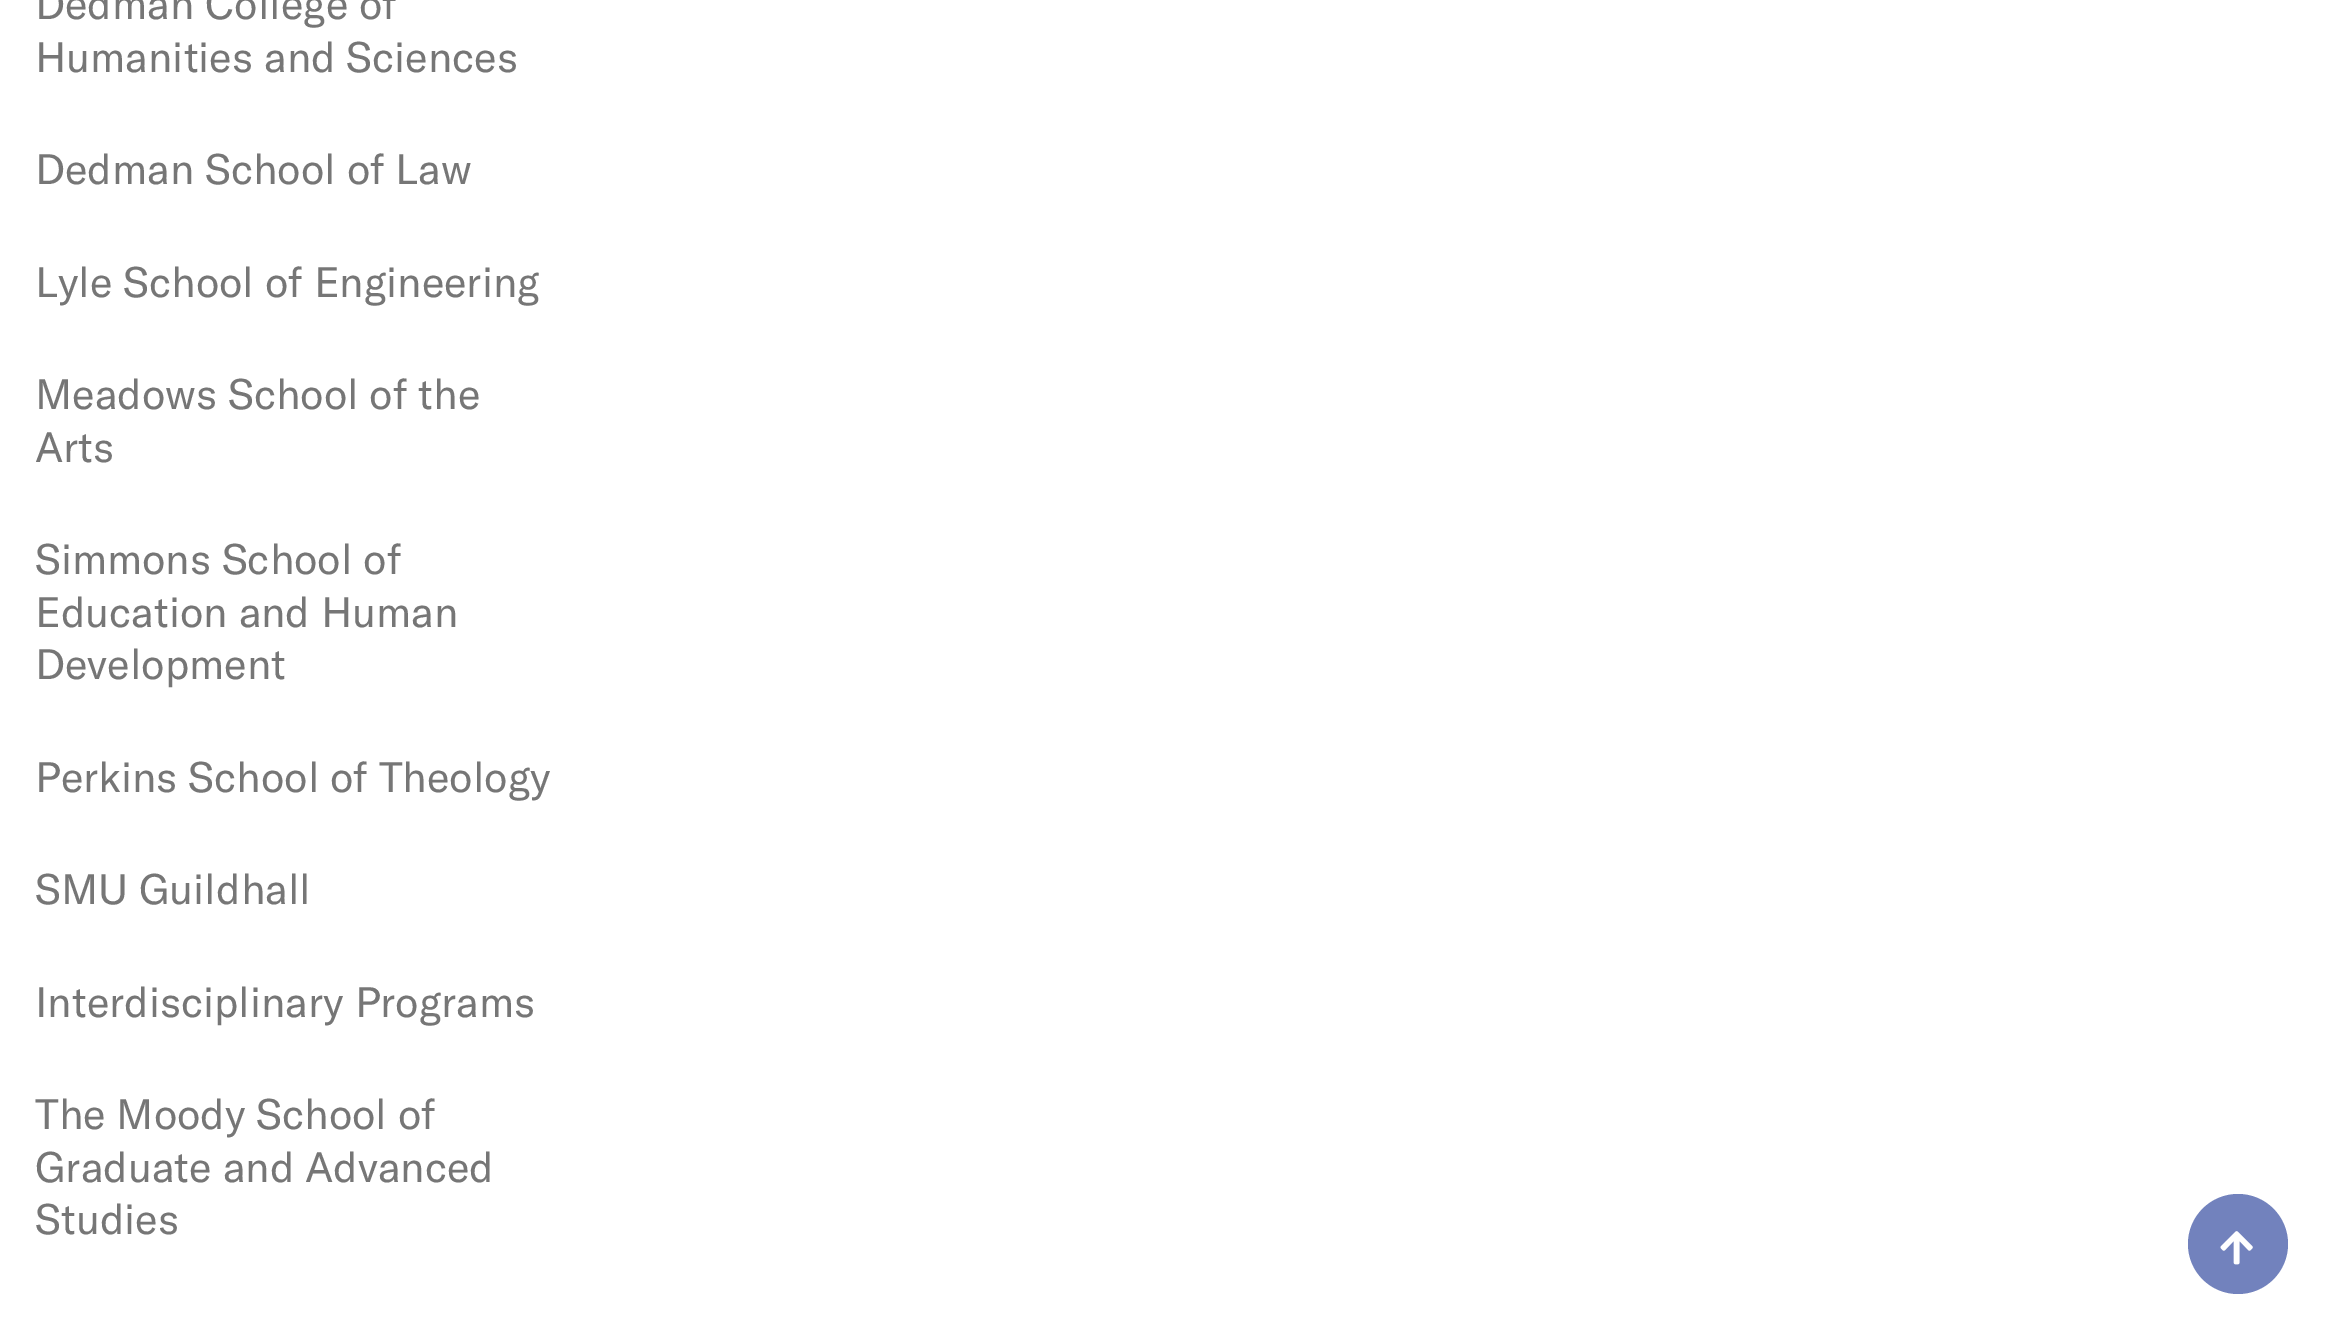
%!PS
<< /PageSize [2327 1333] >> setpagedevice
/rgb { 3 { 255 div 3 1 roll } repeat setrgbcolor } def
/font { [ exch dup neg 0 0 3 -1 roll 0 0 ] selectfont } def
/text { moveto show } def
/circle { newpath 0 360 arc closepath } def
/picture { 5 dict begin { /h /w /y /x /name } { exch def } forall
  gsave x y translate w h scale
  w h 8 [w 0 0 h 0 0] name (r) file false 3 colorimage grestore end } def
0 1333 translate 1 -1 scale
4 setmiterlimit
255 255 255 rgb
0 0 2327 1333 rectfill
114 130 189 rgb
2238 1244 50 circle fill
(img_01.rgb) 2220 1231 33 34 picture
/GTAmerica-Regular 42 font
118 118 118 rgb
(Dedman College of) 35 19 text
(Humanities and Sciences) 35 72 text
(Dedman School of Law) 35 184 text
(Lyle School of Engineering) 35 297 text
(Meadows School of the) 35 409 text
(Arts) 35 462 text
(Simmons School of) 35 574 text
(Education and Human) 35 627 text
(Development) 35 679 text
(Perkins School of Theology) 35 792 text
(SMU Guildhall) 35 904 text
(Interdisciplinary Programs) 35 1017 text
(The Moody School of) 35 1129 text
(Graduate and Advanced) 35 1182 text
(Studies) 35 1234 text
showpage
